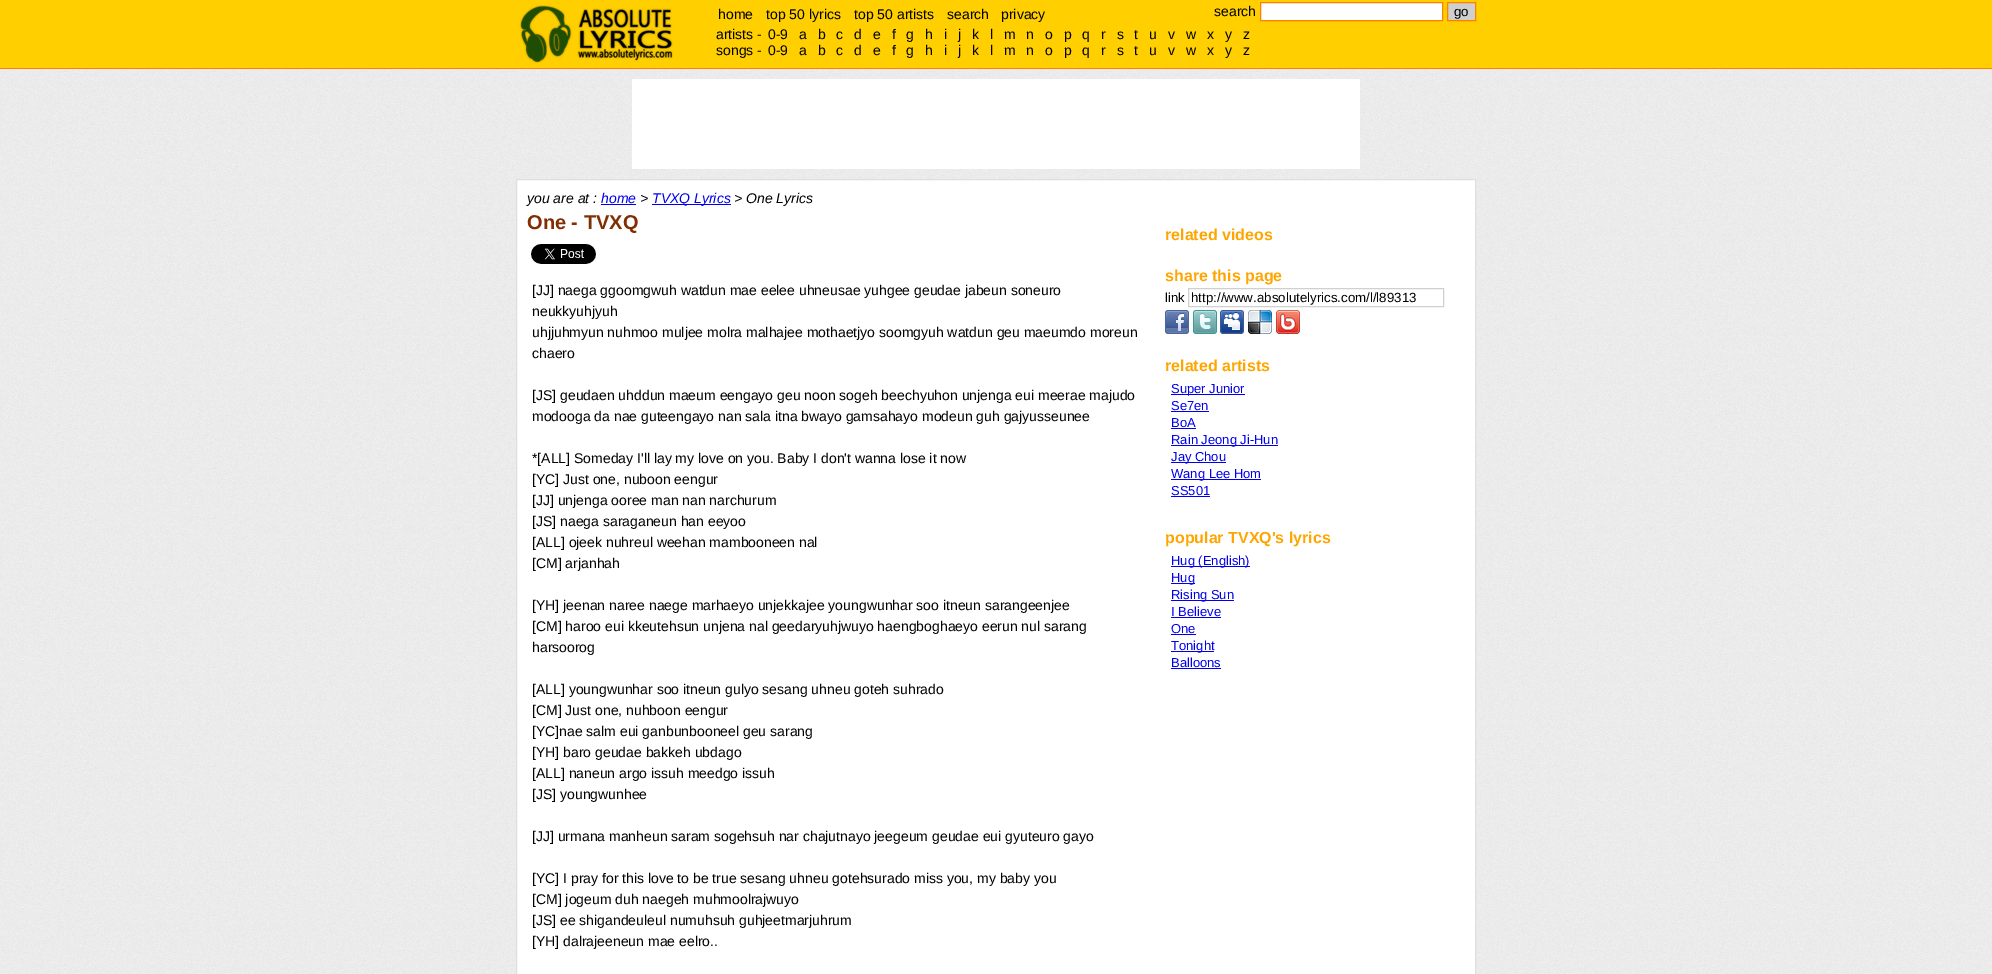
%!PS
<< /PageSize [1992 974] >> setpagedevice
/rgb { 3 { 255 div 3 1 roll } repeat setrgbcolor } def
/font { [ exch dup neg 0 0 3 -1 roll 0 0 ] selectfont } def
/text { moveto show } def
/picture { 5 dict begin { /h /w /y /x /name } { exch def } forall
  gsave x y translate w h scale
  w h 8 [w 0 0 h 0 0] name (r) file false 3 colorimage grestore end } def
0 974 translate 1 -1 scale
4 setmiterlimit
255 255 255 rgb
0 0 1992 974 rectfill
(img_01.rgb) 0 69 1992 905 picture
255 207 0 rgb
0 0 1992 68 rectfill
255 127 0 rgb
0 68 1992 1 rectfill
(img_02.rgb) 519 5 155 58 picture
255 255 255 rgb
1260.5 2.5 moveto 182 0 rlineto 0 18 rlineto -182 0 rlineto closepath gsave fill grestore
255 127 0 rgb
stroke
207 207 207 rgb
1447.5 2.5 moveto 28 0 rlineto 0 18 rlineto -28 0 rlineto closepath gsave fill grestore
255 127 0 rgb
stroke
255 255 255 rgb
632 79 728 90 rectfill
516.5 179.5 moveto 959 0 rlineto 0 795 rlineto -959 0 rlineto closepath gsave fill grestore
223 223 223 rgb
stroke
0 0 238 rgb
601 204 35 1 rectfill
652 204 79 1 rectfill
(img_03.rgb) 531 244 65 20 picture
208 208 208 rgb
1188.5 288.5 255 18 rectstroke
(img_04.rgb) 1165 310 24 24 picture
(img_05.rgb) 1193 310 24 24 picture
(img_06.rgb) 1220 310 24 24 picture
(img_07.rgb) 1248 310 24 24 picture
(img_08.rgb) 1276 310 24 24 picture
0 0 238 rgb
1171 394 74 1 rectfill
1171 411 38 1 rectfill
1171 428 25 1 rectfill
1171 445 107 1 rectfill
1171 462 55 1 rectfill
1171 479 90 1 rectfill
1171 496 39 1 rectfill
1171 566 79 1 rectfill
1171 583 24 1 rectfill
1171 600 63 1 rectfill
1171 617 50 1 rectfill
1171 634 25 1 rectfill
1171 651 43 1 rectfill
1171 668 50 1 rectfill
/LiberationSans-Regular 14 font
0 0 0 rgb
(home) 718 19 text
(top 50 lyrics) 766 19 text
(top 50 artists) 854 19 text
(search) 947 19 text
(privacy) 1001 19 text
(search) 1214 16 text
/LiberationSans-Regular 13.3 font
(go) 1454 16 text
/LiberationSans-Regular 14 font
(artists -) 716 39 text
(0-9) 768 39 text
(a) 799 39 text
(b) 818 39 text
(c) 836 39 text
(d) 854 39 text
(e) 873 39 text
(f) 892 39 text
(g) 906 39 text
(h) 925 39 text
(i) 944 39 text
(j) 958 39 text
(k) 972 39 text
(l) 990 39 text
(m) 1004 39 text
(n) 1026 39 text
(o) 1045 39 text
(p) 1064 39 text
(q) 1082 39 text
(r) 1101 39 text
(s) 1117 39 text
(t) 1134 39 text
(u) 1149 39 text
(v) 1168 39 text
(w) 1186 39 text
(x) 1207 39 text
(y) 1225 39 text
(z) 1243 39 text
(songs -) 716 55 text
(0-9) 768 55 text
(a) 799 55 text
(b) 818 55 text
(c) 836 55 text
(d) 854 55 text
(e) 873 55 text
(f) 892 55 text
(g) 906 55 text
(h) 925 55 text
(i) 944 55 text
(j) 958 55 text
(k) 972 55 text
(l) 990 55 text
(m) 1004 55 text
(n) 1026 55 text
(o) 1045 55 text
(p) 1064 55 text
(q) 1082 55 text
(r) 1101 55 text
(s) 1117 55 text
(t) 1134 55 text
(u) 1149 55 text
(v) 1168 55 text
(w) 1186 55 text
(x) 1207 55 text
(y) 1225 55 text
(z) 1243 55 text
/LiberationSans-Italic 14 font
(you are at :) 527 203 text
0 0 238 rgb
(home) 601 203 text
0 0 0 rgb
(>) 640 203 text
0 0 238 rgb
(TVXQ Lyrics) 652 203 text
0 0 0 rgb
(> One Lyrics) 734 203 text
/LiberationSans-Bold 20 font
127 47 0 rgb
(One - TVXQ) 527 229 text
/LiberationSans-Regular 14 font
0 0 0 rgb
([JJ] naega ggoomgwuh watdun mae eelee uhneusae yuhgee geudae jabeun soneuro) 532 295 text
(neukkyuhjyuh) 532 316 text
(uhjjuhmyun nuhmoo muljee molra malhajee mothaetjyo soomgyuh watdun geu maeumdo moreun) 532 337 text
(chaero) 532 358 text
([JS] geudaen uhddun maeum eengayo geu noon sogeh beechyuhon unjenga eui meerae majudo) 532 400 text
(modooga da nae guteengayo nan sala itna bwayo gamsahayo modeun guh gajyusseunee) 532 421 text
(*[ALL] Someday I'll lay my love on you. Baby I don't wanna lose it now) 532 463 text
([YC] Just one, nuboon eengur) 532 484 text
([JJ] unjenga ooree man nan narchurum) 532 505 text
([JS] naega saraganeun han eeyoo) 532 526 text
([ALL] ojeek nuhreul weehan mambooneen nal) 532 547 text
([CM] arjanhah) 532 568 text
([YH] jeenan naree naege marhaeyo unjekkajee youngwunhar soo itneun sarangeenjee) 532 610 text
([CM] haroo eui kkeutehsun unjena nal geedaryuhjwuyo haengboghaeyo eerun nul sarang) 532 631 text
(harsoorog) 532 652 text
([ALL] youngwunhar soo itneun gulyo sesang uhneu goteh suhrado) 532 694 text
([CM] Just one, nuhboon eengur) 532 715 text
([YC]nae salm eui ganbunbooneel geu sarang) 532 736 text
([YH] baro geudae bakkeh ubdago) 532 757 text
([ALL] naneun argo issuh meedgo issuh) 532 778 text
([JS] youngwunhee) 532 799 text
([JJ] urmana manheun saram sogehsuh nar chajutnayo jeegeum geudae eui gyuteuro gayo) 532 841 text
([YC] I pray for this love to be true sesang uhneu gotehsurado miss you, my baby you) 532 883 text
([CM] jogeum duh naegeh muhmoolrajwuyo) 532 904 text
([JS] ee shigandeuleul numuhsuh guhjeetmarjuhrum) 532 925 text
([YH] dalrajeeneun mae eelro..) 532 946 text
/LiberationSans-Bold 16 font
255 165 0 rgb
(related videos) 1165 240 text
(share this page) 1165 281 text
/LiberationSans-Regular 13 font
0 0 0 rgb
(link) 1165 302 text
/LiberationSans-Regular 13.3 font
(http://www.absolutelyrics.com/l/l89313) 1191 302 text
/LiberationSans-Bold 16 font
255 165 0 rgb
(related artists) 1165 371 text
/LiberationSans-Regular 13 font
0 0 238 rgb
(Super Junior) 1171 393 text
(Se7en) 1171 410 text
(BoA) 1171 427 text
(Rain Jeong Ji-Hun) 1171 444 text
(Jay Chou) 1171 461 text
(Wang Lee Hom) 1171 478 text
(SS501) 1171 495 text
/LiberationSans-Bold 16 font
255 165 0 rgb
(popular TVXQ's lyrics) 1165 543 text
/LiberationSans-Regular 13 font
0 0 238 rgb
(Hug \(English\)) 1171 565 text
(Hug) 1171 582 text
(Rising Sun) 1171 599 text
(I Believe) 1171 616 text
(One) 1171 633 text
(Tonight) 1171 650 text
(Balloons) 1171 667 text
showpage
